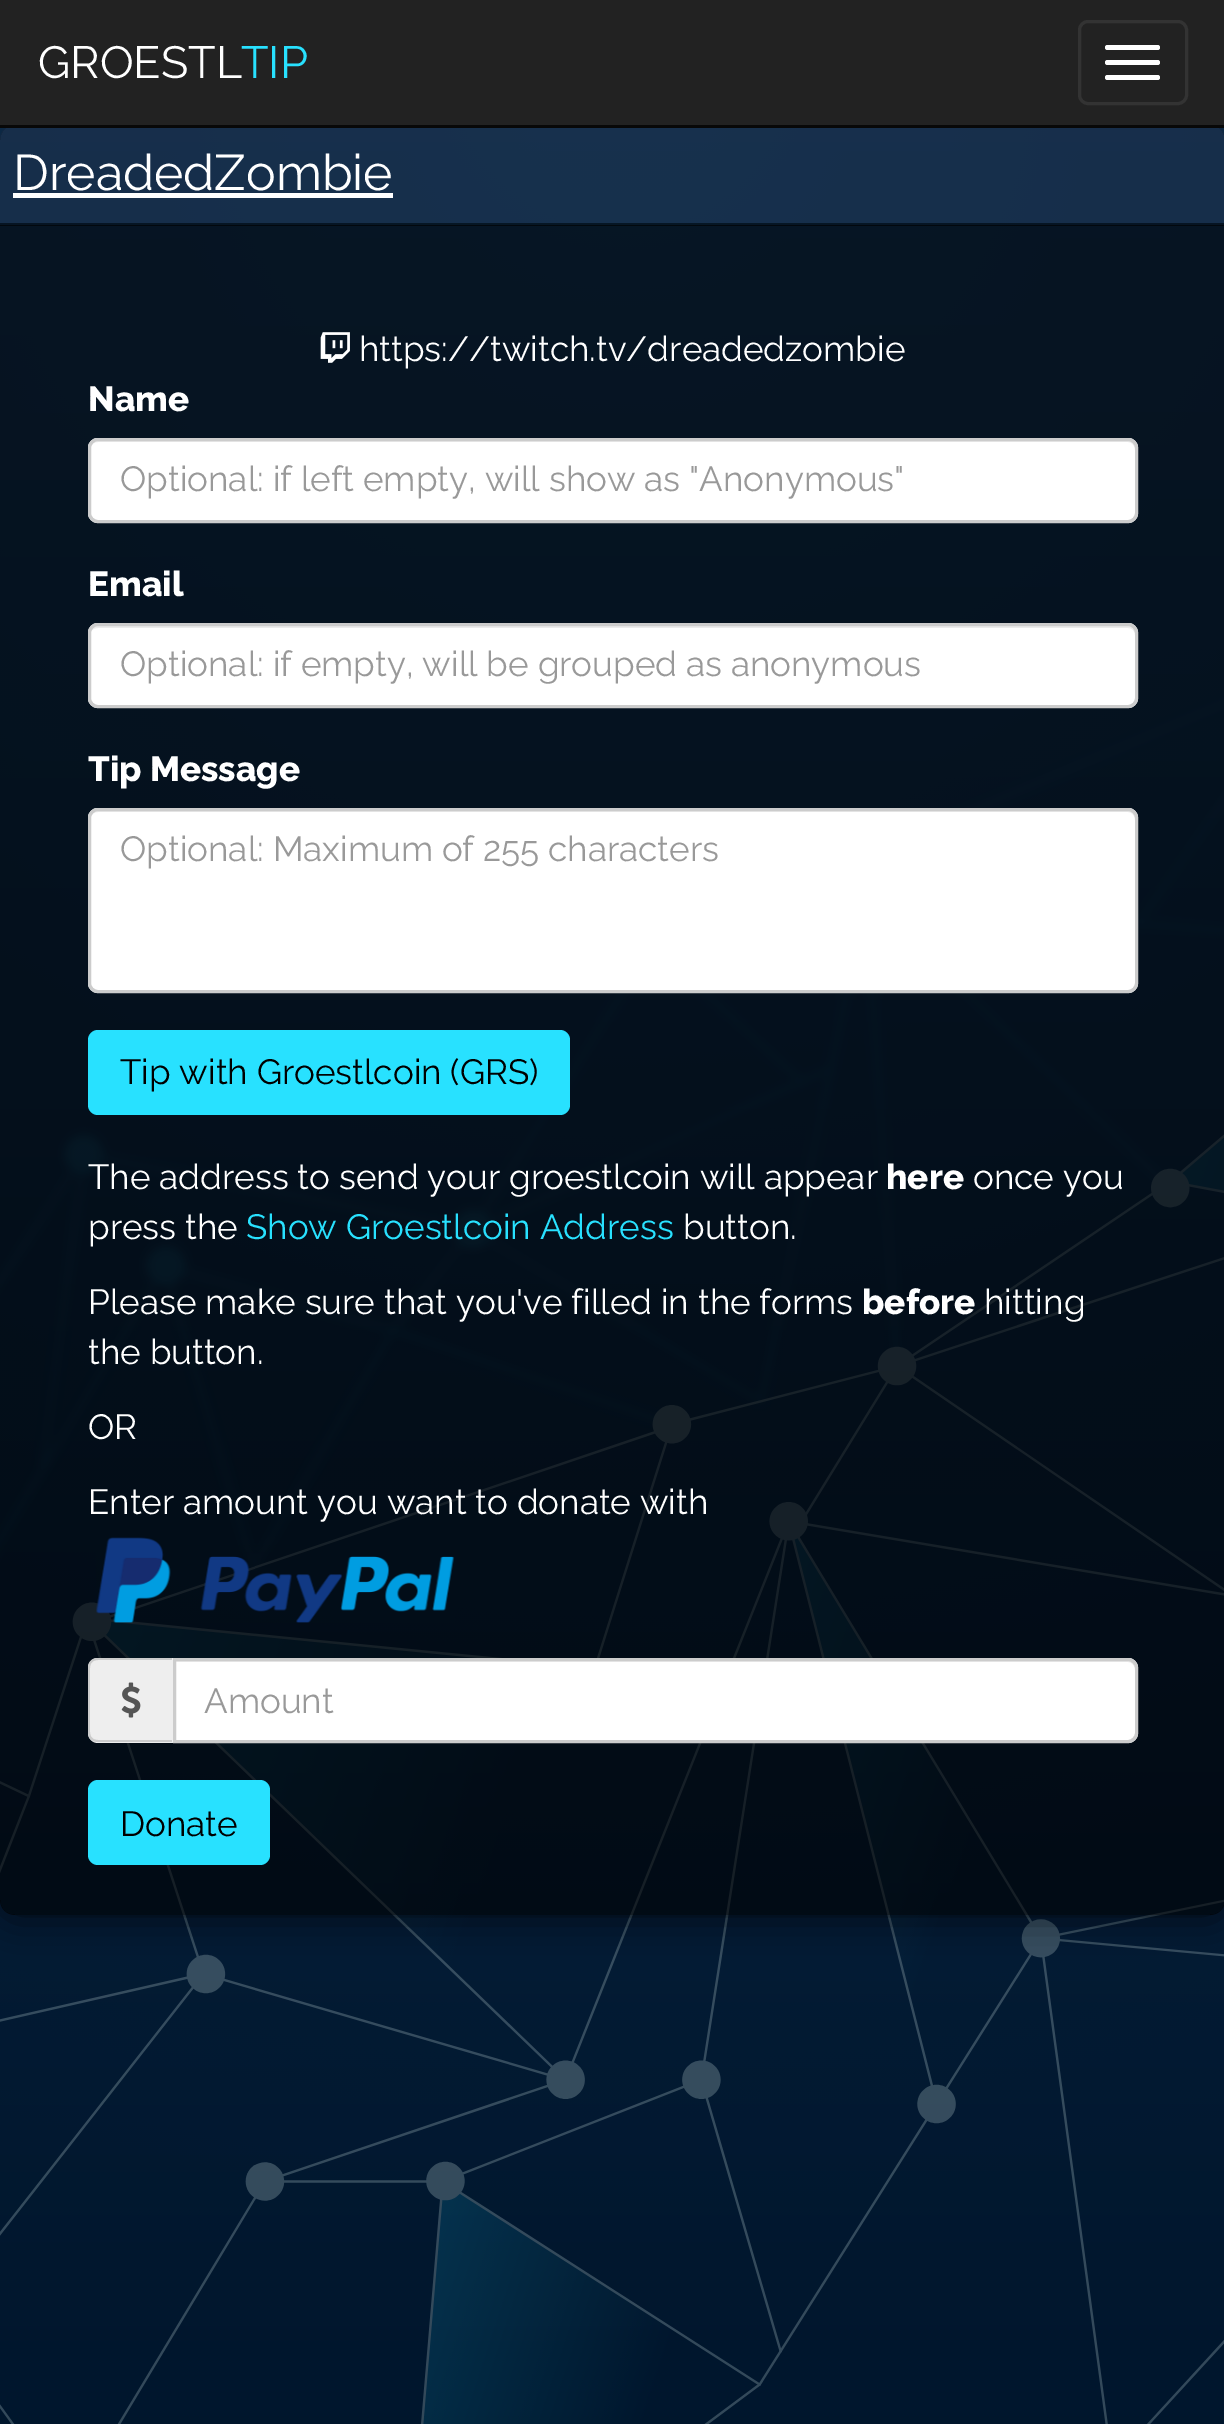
%!PS
<< /PageSize [1224 2424] /PageUsesTransparency true >> setpagedevice
/rgb { 3 { 255 div 3 1 roll } repeat setrgbcolor } def
/font { [ exch dup neg 0 0 3 -1 roll 0 0 ] selectfont } def
/text { moveto show } def
/alpha { dup .setfillconstantalpha .setstrokeconstantalpha } def
/roundrect { 5 dict begin { /r /h /w /y /x } { exch def } forall
  x r add y moveto x w add y 2 copy h add r arct x w add y h add x 1 index r arct
  x y h add x y r arct x y 2 copy exch w add exch r arct closepath end } def
/shadow { 12 dict begin { /a /b /q /h /w /y /x } { exch def } forall gsave /was 0 def
  9 -2 -9 { dup b mul 4 div /e exch def 1 sub .425 mul 2.718 exch exp 1 add a .99 .min exch div /now exch def
    1 1 now sub 1 was sub div sub alpha /was now def
    w h .min e 2 mul add 0 gt { x e sub y e sub w e 2 mul add h e 2 mul add
      q e add b .6 mul add w h .min 2 div e add .min 0 .max roundrect fill } if } for grestore end } def
/picture { 5 dict begin { /h /w /y /x /name } { exch def } forall
  gsave x y translate w h scale
  w h 8 [w 0 0 h 0 0] name (r) file false 3 colorimage grestore end } def
0 .pushpdf14devicefilter
0 2424 translate 1 -1 scale
4 setmiterlimit
255 255 255 rgb
0 0 1224 2424 rectfill
(img_01.rgb) 0 128 1224 2296 picture
gsave
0 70 moveto 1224 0 rlineto 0 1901 rlineto -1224 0 rlineto closepath 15 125 moveto 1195 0 rlineto 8.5 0 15 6.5 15 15 rcurveto 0 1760 rlineto 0 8.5 -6.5 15 -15 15 rcurveto -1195 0 rlineto -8.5 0 -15 -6.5 -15 -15 rcurveto 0 -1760 rlineto 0 -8.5 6.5 -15 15 -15 rcurveto closepath eoclip newpath
0 0 0 rgb
3 128 1220 1785 13 19 0.75 shadow
grestore
34 34 34 rgb
0 0 1224 125 rectfill
0.5 alpha
29 41 62 rgb
15 125 moveto 1195 0 rlineto 8.5 0 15 6.5 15 15 rcurveto 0 83 rlineto -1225 0 rlineto 0 -83 rlineto 0 -8.5 6.5 -15 15 -15 rcurveto closepath fill
1 alpha
8 8 8 rgb
0 125 1224 3 rectfill
51 51 51 rgb
3 setlinewidth
1079.5 21.5 107 82 8.5 roundrect stroke
255 255 255 rgb
1105 45 55 5 2.5 roundrect fill
1105 60 55 5 2.5 roundrect fill
1105 75 55 5 2.5 roundrect fill
13 193 380 5 rectfill
0.6 alpha
0 0 0 rgb
0 223 1224 3 rectfill
0 225 moveto 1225 0 rlineto 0 1675 rlineto 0 8.5 -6.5 15 -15 15 rcurveto -1195 0 rlineto -8.5 0 -15 -6.5 -15 -15 rcurveto closepath fill
1 alpha
(img_02.rgb) 320 332 30 31 picture
255 255 255 rgb
88 438 1050 85 10 roundrect fill
236 236 236 rgb
98 442 moveto 1030 0 rlineto 4 0 7 4 7 8 rcurveto 0 -2 rlineto 0 -4 -4 -8 -8 -8 rcurveto -1029 0 rlineto -4 0 -8 4 -8 8 rcurveto 0 2 rlineto 0 -4 3 -8 8 -8 rcurveto closepath fill
204 204 204 rgb
89.5 439.5 1047 82 8.5 roundrect stroke
255 255 255 rgb
88 623 1050 85 10 roundrect fill
236 236 236 rgb
98 628 moveto 1030 0 rlineto 4 0 7 3 7 7 rcurveto 0 -2 rlineto 0 -4 -4 -8 -8 -8 rcurveto -1029 0 rlineto -4 0 -8 4 -8 8 rcurveto 0 2 rlineto 0 -4 3 -7 8 -7 rcurveto closepath fill
204 204 204 rgb
89.5 624.5 1047 82 8.5 roundrect stroke
255 255 255 rgb
88 808 1050 185 10 roundrect fill
236 236 236 rgb
98 812 moveto 1030 0 rlineto 4 0 7 4 7 8 rcurveto 0 -2 rlineto 0 -4 -4 -8 -8 -8 rcurveto -1029 0 rlineto -4 0 -8 4 -8 8 rcurveto 0 2 rlineto 0 -4 3 -8 8 -8 rcurveto closepath fill
204 204 204 rgb
89.5 809.5 1047 182 8.5 roundrect stroke
40 225 255 rgb
88 1030 482 85 10 roundrect fill
(img_03.rgb) 96 1537 359 86 picture
238 238 238 rgb
98 1658 moveto 75 0 rlineto 0 85 rlineto -75 0 rlineto -5.5 0 -10 -4.5 -10 -10 rcurveto 0 -65 rlineto 0 -5.5 4.5 -10 10 -10 rcurveto closepath fill
204 204 204 rgb
98 1658 moveto 74 0 rlineto 0 84 rlineto -74 0 rlineto -6 0 -10 -4 -10 -10 rcurveto 0 -64 rlineto 0 -6 4 -10 10 -10 rcurveto closepath 98 1660 moveto 74 0 rlineto 0 80 rlineto -74 0 rlineto -5 0 -8 -3 -8 -8 rcurveto 0 -64 rlineto 0 -5 3 -8 8 -8 rcurveto closepath eofill
(img_04.rgb) 121 1682 20 36 picture
255 255 255 rgb
173 1658 moveto 955 0 rlineto 5.5 0 10 4.5 10 10 rcurveto 0 65 rlineto 0 5.5 -4.5 10 -10 10 rcurveto -955 0 rlineto closepath fill
236 236 236 rgb
175 1662 moveto 953 0 rlineto 4 0 7 4 7 8 rcurveto 0 -5 -2 -10 -8 -10 rcurveto -952 0 rlineto closepath fill
204 204 204 rgb
174.5 1659.5 moveto 953.5 0 rlineto 4.5 0 8.5 4 8.5 8.5 rcurveto 0 65 rlineto 0 4.5 -4 8.5 -8.5 8.5 rcurveto -953.5 0 rlineto closepath stroke
40 225 255 rgb
88 1780 182 85 10 roundrect fill
/Raleway-Regular 45 font
255 255 255 rgb
(GROESTL) 38 78 text
40 225 255 rgb
(TIP) 241 78 text
/Raleway-Regular 50 font
255 255 255 rgb
(DreadedZombie) 13 190 text
/Raleway-Regular 35 font
(https://twitch.tv/dreadedzombie) 359 361 text
/Raleway-ExtraBold 35 font
(Name) 88 411 text
/Raleway-Regular 35 font
153 153 153 rgb
(Optional: if left empty, will show as "Anonymous") 120 491 text
/Raleway-ExtraBold 35 font
255 255 255 rgb
(Email) 88 596 text
/Raleway-Regular 35 font
153 153 153 rgb
(Optional: if empty, will be grouped as anonymous) 120 676 text
/Raleway-ExtraBold 35 font
255 255 255 rgb
(Tip Message) 88 781 text
/Raleway-Regular 35 font
153 153 153 rgb
(Optional: Maximum of 255 characters) 120 861 text
0 0 0 rgb
(Tip with Groestlcoin \(GRS\)) 120 1084 text
255 255 255 rgb
(The address to send your groestlcoin will appear) 88 1189 text
/Raleway-ExtraBold 35 font
(here) 886 1189 text
/Raleway-Regular 35 font
(once you) 973 1189 text
(press the) 88 1239 text
40 225 255 rgb
(Show Groestlcoin Address) 246 1239 text
255 255 255 rgb
(button.) 683 1239 text
(Please make sure that you've filled in the forms) 88 1314 text
/Raleway-ExtraBold 35 font
(before) 862 1314 text
/Raleway-Regular 35 font
(hitting) 984 1314 text
(the button.) 88 1364 text
(OR) 88 1439 text
(Enter amount you want to donate with) 88 1514 text
153 153 153 rgb
(Amount) 204 1713 text
0 0 0 rgb
(Donate) 120 1836 text
.poppdf14devicefilter showpage
